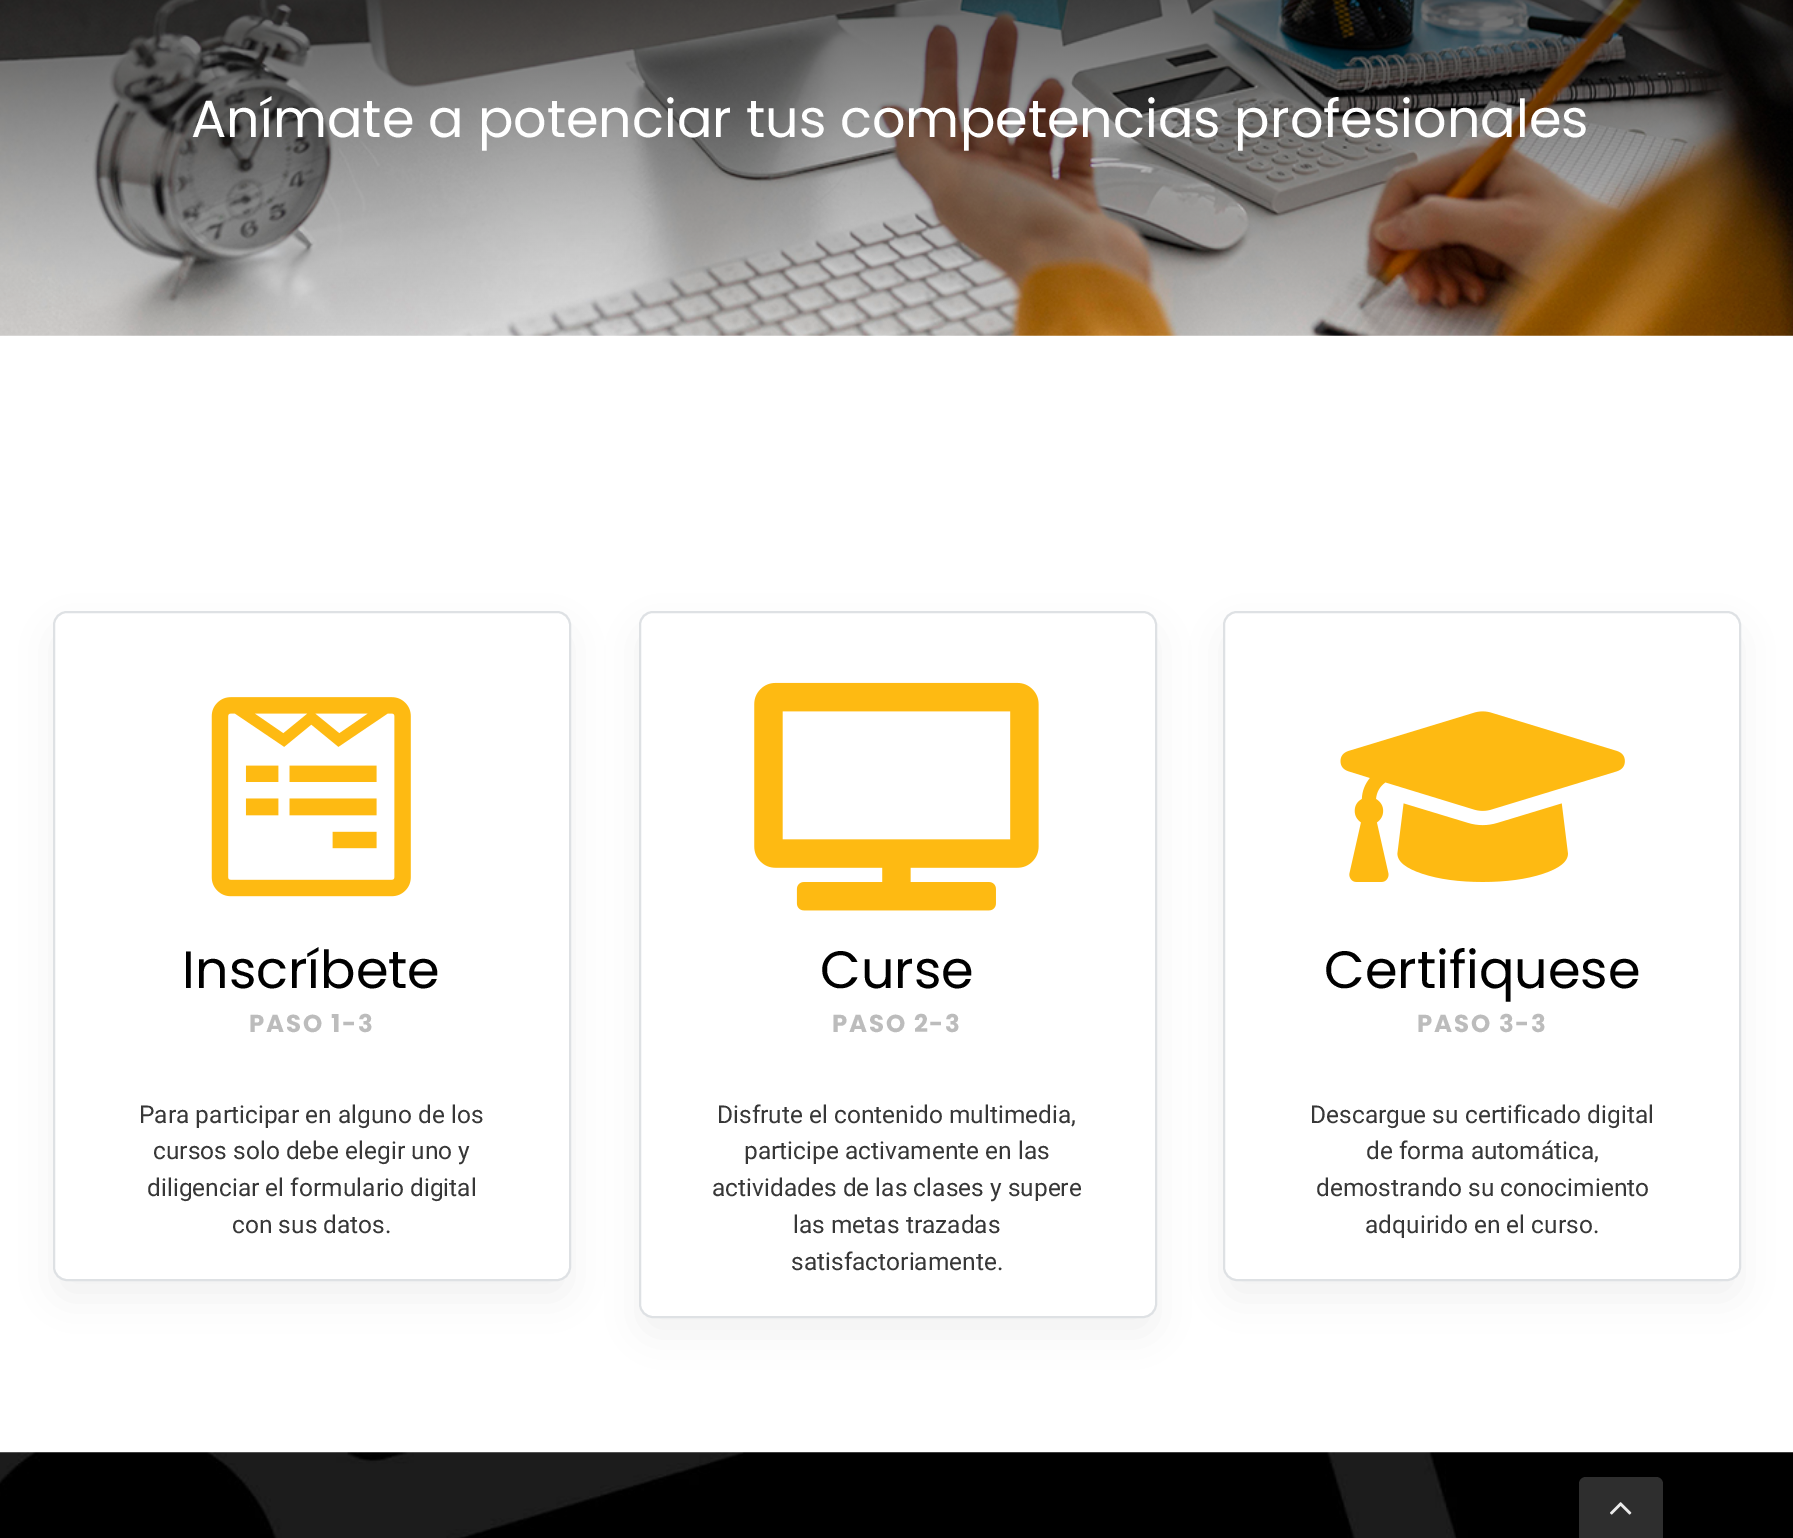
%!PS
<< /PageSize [1793 1538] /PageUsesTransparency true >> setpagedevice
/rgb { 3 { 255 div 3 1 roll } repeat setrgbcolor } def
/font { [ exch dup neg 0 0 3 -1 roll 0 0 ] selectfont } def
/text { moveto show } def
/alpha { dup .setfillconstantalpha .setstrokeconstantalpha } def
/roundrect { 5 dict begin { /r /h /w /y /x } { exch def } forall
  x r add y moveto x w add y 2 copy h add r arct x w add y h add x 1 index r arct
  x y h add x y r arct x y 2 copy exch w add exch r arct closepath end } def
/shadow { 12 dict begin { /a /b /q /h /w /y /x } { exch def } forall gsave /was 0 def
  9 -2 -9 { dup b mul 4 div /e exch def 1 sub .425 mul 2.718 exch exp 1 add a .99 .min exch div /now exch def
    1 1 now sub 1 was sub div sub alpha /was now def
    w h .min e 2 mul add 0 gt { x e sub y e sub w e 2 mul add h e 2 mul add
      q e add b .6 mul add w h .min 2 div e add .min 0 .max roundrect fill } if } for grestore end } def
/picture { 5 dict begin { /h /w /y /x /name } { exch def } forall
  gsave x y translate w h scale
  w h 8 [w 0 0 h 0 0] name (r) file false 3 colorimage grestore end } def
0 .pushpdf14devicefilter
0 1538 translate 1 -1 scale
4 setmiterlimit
255 255 255 rgb
0 0 1793 1538 rectfill
(img_01.rgb) 0 0 1793 336 picture
gsave
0 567 moveto 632 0 rlineto 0 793 rlineto -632 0 rlineto closepath 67 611 moveto 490 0 rlineto 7.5 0 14 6.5 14 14 rcurveto 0 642 rlineto 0 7.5 -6.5 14 -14 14 rcurveto -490 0 rlineto -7.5 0 -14 -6.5 -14 -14 rcurveto 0 -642 rlineto 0 -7.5 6.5 -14 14 -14 rcurveto closepath eoclip newpath
0 0 0 rgb
53 628 518 671 14 20 0.05 shadow
grestore
222 225 228 rgb
2 setlinewidth
54 612 516 668 13 roundrect stroke
(img_02.rgb) 211 697 200 200 picture
gsave
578 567 moveto 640 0 rlineto 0 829 rlineto -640 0 rlineto closepath 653 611 moveto 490 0 rlineto 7.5 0 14 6.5 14 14 rcurveto 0 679 rlineto 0 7.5 -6.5 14 -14 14 rcurveto -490 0 rlineto -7.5 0 -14 -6.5 -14 -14 rcurveto 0 -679 rlineto 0 -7.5 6.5 -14 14 -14 rcurveto closepath eoclip newpath
0 0 0 rgb
639 628 518 707 14 20 0.05 shadow
grestore
640 612 516 705 13 roundrect stroke
(img_03.rgb) 754 682 285 229 picture
gsave
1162 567 moveto 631 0 rlineto 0 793 rlineto -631 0 rlineto closepath 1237 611 moveto 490 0 rlineto 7.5 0 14 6.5 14 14 rcurveto 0 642 rlineto 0 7.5 -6.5 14 -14 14 rcurveto -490 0 rlineto -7.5 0 -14 -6.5 -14 -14 rcurveto 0 -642 rlineto 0 -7.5 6.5 -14 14 -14 rcurveto closepath eoclip newpath
0 0 0 rgb
1223 628 518 671 14 20 0.05 shadow
grestore
1224 612 516 668 13 roundrect stroke
(img_04.rgb) 1340 711 285 171 picture
(img_05.rgb) 0 1452 1793 86 picture
46 46 46 rgb
1586 1477 moveto 70 0 rlineto 4 0 7 3 7 7 rcurveto 0 54 rlineto -84 0 rlineto 0 -54 rlineto 0 -4 3 -7 7 -7 rcurveto closepath fill
(img_06.rgb) 1610 1502 22 13 picture
/Poppins-Regular 52.5 font
255 255 255 rgb
(Anímate a potenciar tus competencias profesionales) 191 137 text
0 0 0 rgb
(Inscríbete) 182 988 text
/Poppins-Bold 24.5 font
188 188 188 rgb
249 1032 moveto 1.75 0 (PASO 1-3) ashow
/Roboto-Regular 24.5 font
55 55 55 rgb
(Para participar en alguno de los) 139 1123 text
(cursos solo debe elegir uno y) 153 1159 text
(diligenciar el formulario digital) 147 1196 text
(con sus datos.) 232 1233 text
/Poppins-Regular 52.5 font
0 0 0 rgb
(Curse) 820 988 text
/Poppins-Bold 24.5 font
188 188 188 rgb
832 1032 moveto 1.75 0 (PASO 2-3) ashow
/Roboto-Regular 24.5 font
55 55 55 rgb
(Disfrute el contenido multimedia,) 717 1123 text
(participe activamente en las) 744 1159 text
(actividades de las clases y supere) 712 1196 text
(las metas trazadas) 793 1233 text
(satisfactoriamente.) 791 1270 text
/Poppins-Regular 52.5 font
0 0 0 rgb
(Certifiquese) 1324 988 text
/Poppins-Bold 24.5 font
188 188 188 rgb
1417 1032 moveto 1.75 0 (PASO 3-3) ashow
/Roboto-Regular 24.5 font
55 55 55 rgb
(Descargue su certificado digital) 1310 1123 text
(de forma automática,) 1366 1159 text
(demostrando su conocimiento) 1316 1196 text
(adquirido en el curso.) 1365 1233 text
.poppdf14devicefilter showpage
